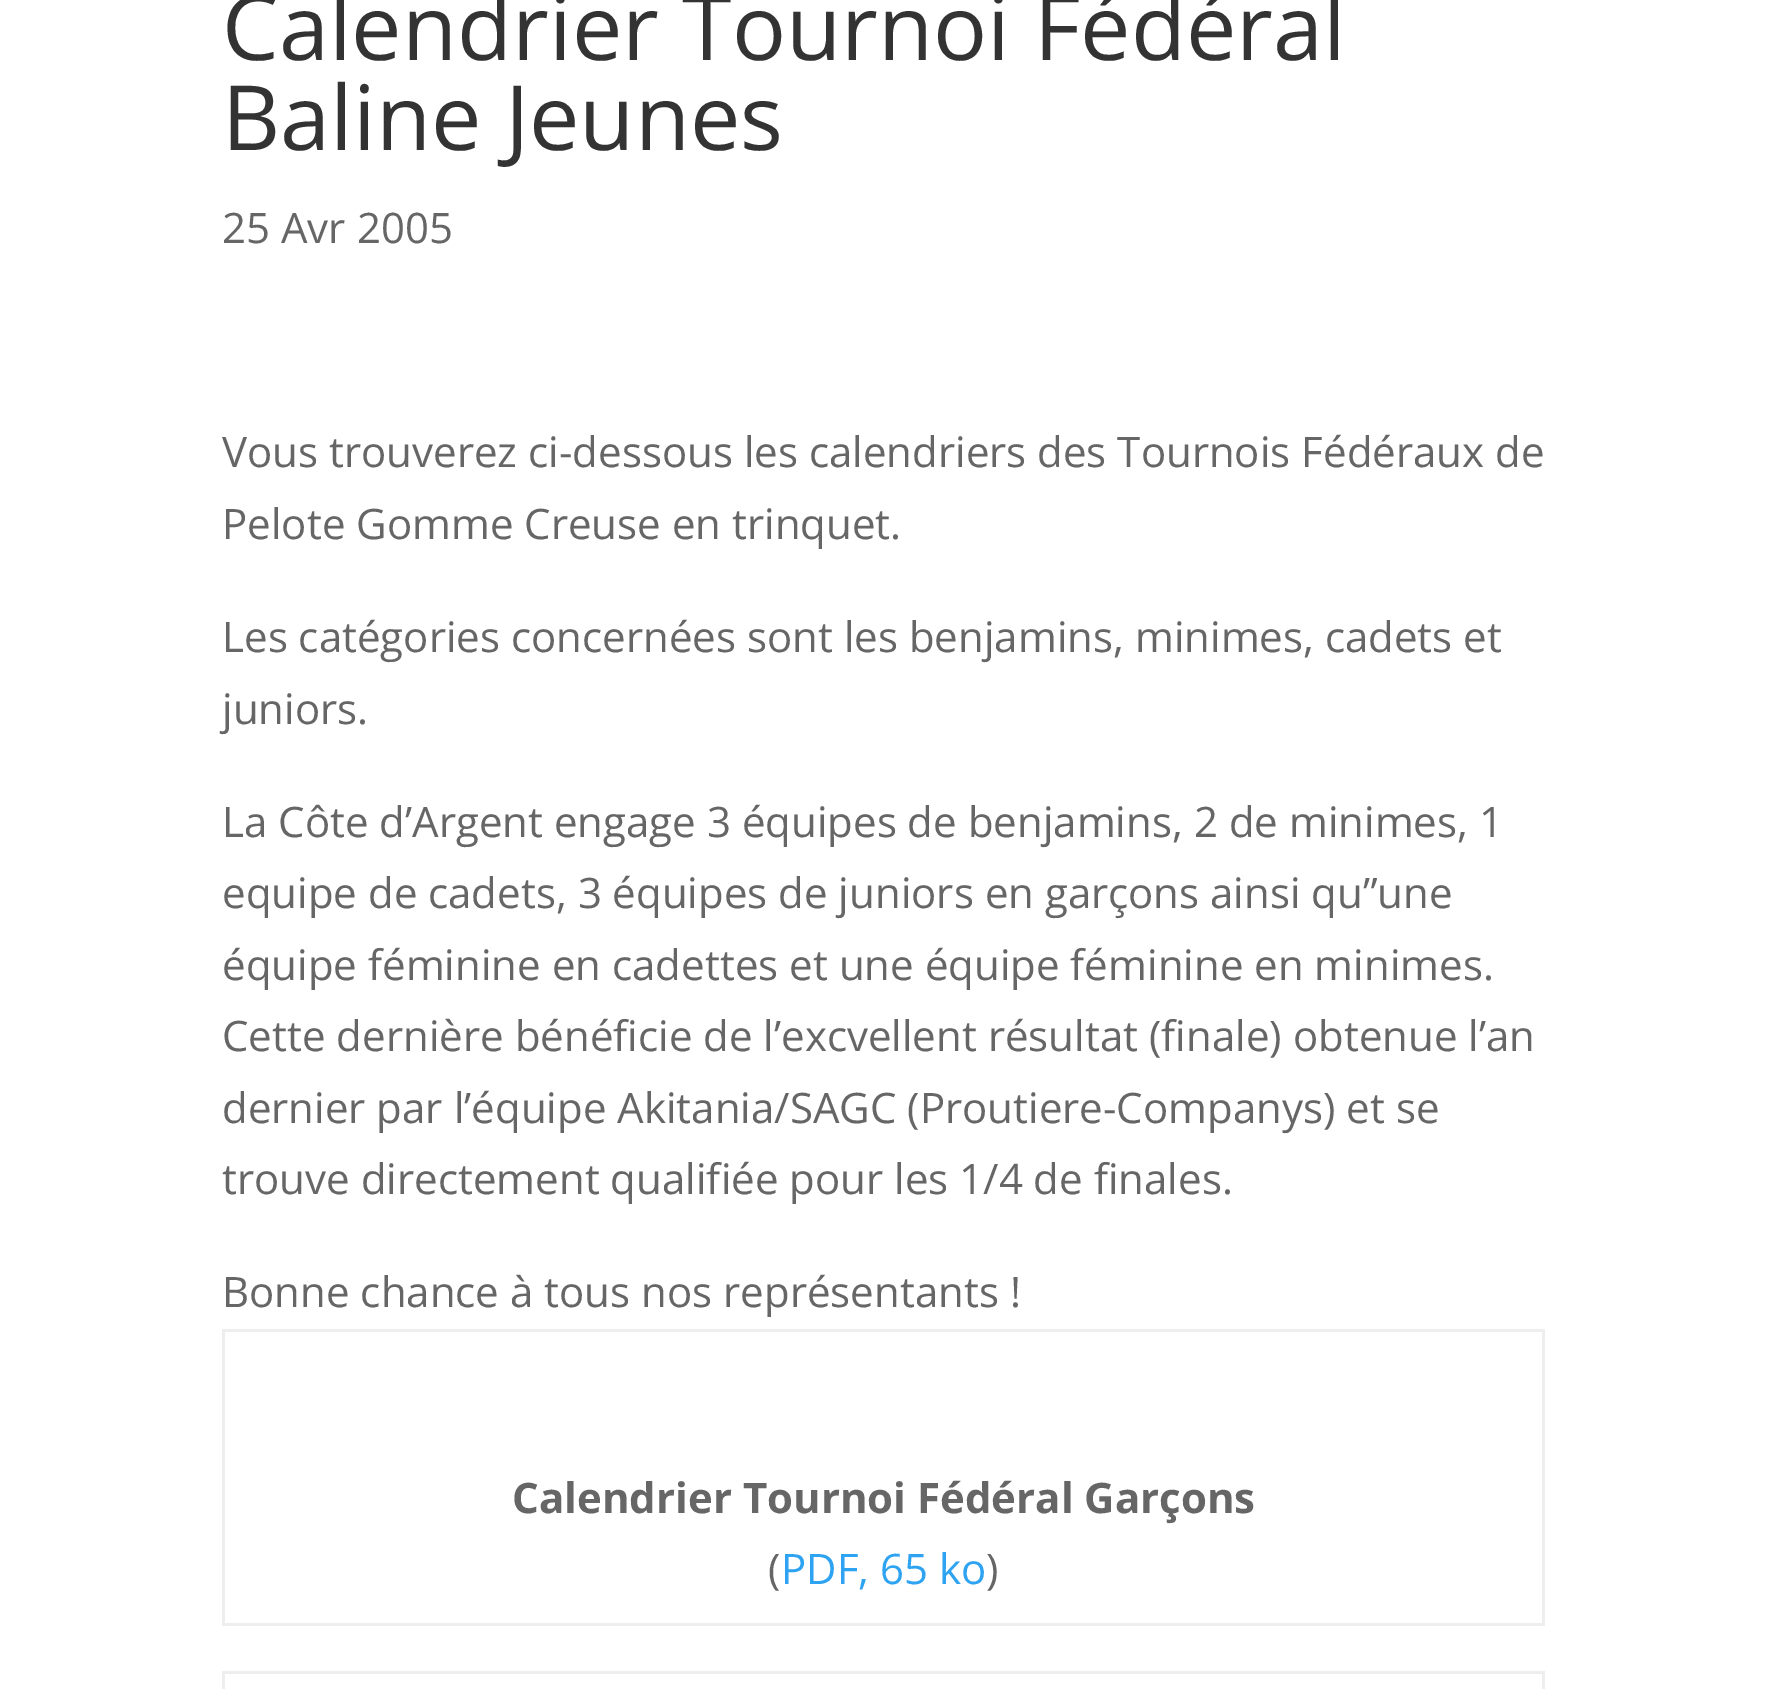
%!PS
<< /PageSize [1765 1689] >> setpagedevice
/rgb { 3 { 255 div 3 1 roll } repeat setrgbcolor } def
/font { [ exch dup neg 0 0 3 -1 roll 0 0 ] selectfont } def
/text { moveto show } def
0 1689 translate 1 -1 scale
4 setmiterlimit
255 255 255 rgb
0 0 1765 1689 rectfill
238 238 238 rgb
222 1329 1323 3 rectfill
1542 1329 3 297 rectfill
222 1623 1323 3 rectfill
222 1329 3 297 rectfill
222 1671 1323 3 rectfill
1542 1671 3 18 rectfill
222 1671 3 18 rectfill
/OpenSans-Regular 90 font
51 51 51 rgb
(Calendrier Tournoi Fédéral) 222 60 text
(Baline Jeunes) 222 150 text
/OpenSans-Regular 42 font
102 102 102 rgb
(25 Avr 2005) 222 243 text
(Vous trouverez ci-dessous les calendriers des Tournois Fédéraux de) 222 467 text
(Pelote Gomme Creuse en trinquet.) 222 539 text
(Les catégories concernées sont les benjamins, minimes, cadets et) 222 652 text
(juniors.) 222 724 text
(La Côte d’Argent engage 3 équipes de benjamins, 2 de minimes, 1) 222 837 text
(equipe de cadets, 3 équipes de juniors en garçons ainsi qu”une) 222 908 text
(équipe féminine en cadettes et une équipe féminine en minimes.) 222 980 text
(Cette dernière bénéficie de l’excvellent résultat \(finale\) obtenue l’an) 222 1051 text
(dernier par l’équipe Akitania/SAGC \(Proutiere-Companys\) et se) 222 1123 text
(trouve directement qualifiée pour les 1/4 de finales.) 222 1194 text
(Bonne chance à tous nos représentants !) 222 1307 text
/OpenSans-Bold 42 font
(Calendrier Tournoi Fédéral Garçons) 512 1513 text
/OpenSans-Regular 42 font
(\() 768 1584 text
46 163 242 rgb
(PDF, 65 ko) 781 1584 text
102 102 102 rgb
(\)) 986 1584 text
showpage
